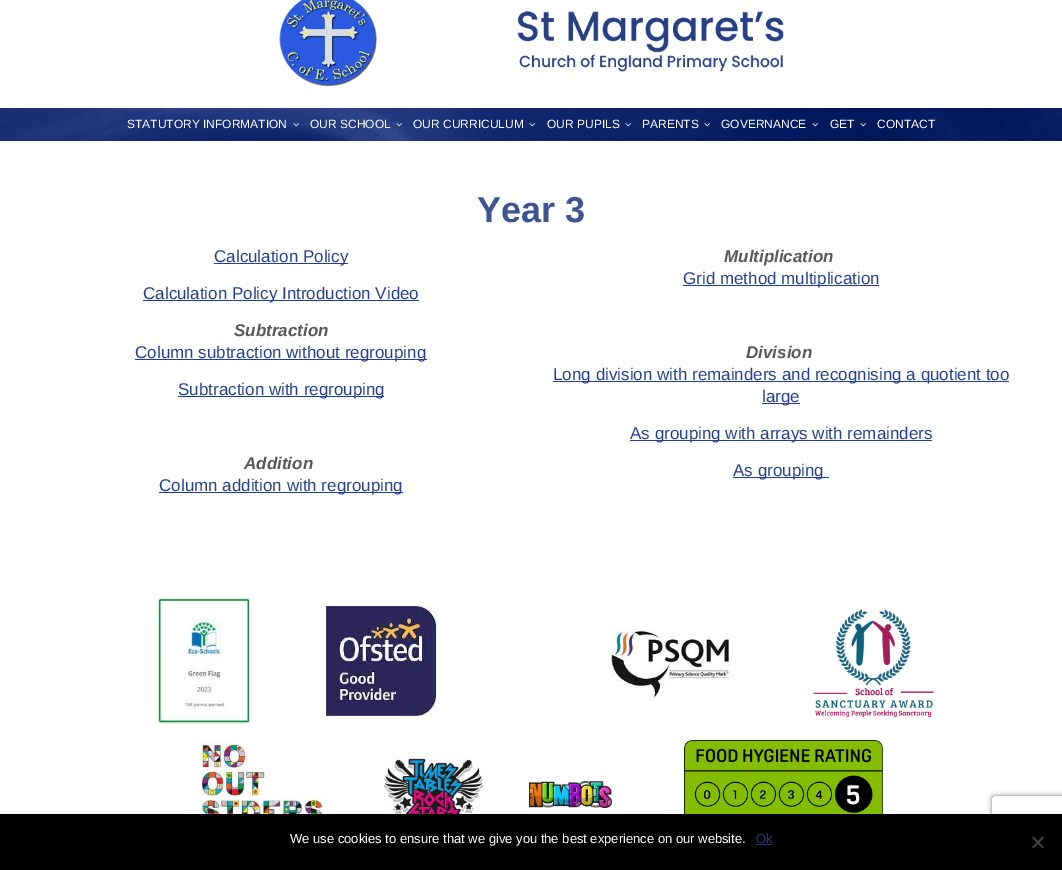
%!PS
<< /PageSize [1062 870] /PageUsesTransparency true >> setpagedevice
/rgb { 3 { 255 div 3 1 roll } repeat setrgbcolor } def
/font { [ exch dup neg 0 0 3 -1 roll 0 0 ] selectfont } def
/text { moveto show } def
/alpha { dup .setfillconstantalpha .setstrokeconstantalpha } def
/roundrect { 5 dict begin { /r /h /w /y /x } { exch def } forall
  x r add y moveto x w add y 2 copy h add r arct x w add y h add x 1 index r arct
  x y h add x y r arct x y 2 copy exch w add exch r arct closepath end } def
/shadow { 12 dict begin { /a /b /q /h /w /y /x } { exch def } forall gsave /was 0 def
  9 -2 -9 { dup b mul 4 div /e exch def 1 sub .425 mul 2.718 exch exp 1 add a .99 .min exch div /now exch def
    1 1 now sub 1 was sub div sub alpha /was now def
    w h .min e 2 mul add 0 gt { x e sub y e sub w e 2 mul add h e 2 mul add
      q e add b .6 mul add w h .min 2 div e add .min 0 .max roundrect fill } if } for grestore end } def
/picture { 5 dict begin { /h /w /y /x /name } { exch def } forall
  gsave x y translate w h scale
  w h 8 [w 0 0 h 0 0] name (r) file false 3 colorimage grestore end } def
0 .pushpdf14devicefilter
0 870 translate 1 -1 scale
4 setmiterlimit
255 255 255 rgb
0 0 1062 870 rectfill
(img_01.rgb) 279 0 505 90 picture
(img_02.rgb) 0 108 1062 33 picture
(img_03.rgb) 293 123 6 4 picture
(img_04.rgb) 396 123 6 4 picture
(img_05.rgb) 529 123 6 4 picture
(img_06.rgb) 625 123 6 4 picture
(img_07.rgb) 704 123 6 4 picture
(img_08.rgb) 812 123 6 4 picture
(img_09.rgb) 860 123 6 4 picture
37 63 142 rgb
214 263 134 1 rectfill
683 285 196 1 rectfill
143 300 276 1 rectfill
135 359 292 1 rectfill
178 396 206 1 rectfill
553 381 456 1 rectfill
762 403 38 1 rectfill
630 440 302 1 rectfill
733 477 96 1 rectfill
159 492 244 1 rectfill
(img_10.rgb) 157 598 94 126 picture
(img_11.rgb) 326 606 115 110 picture
(img_12.rgb) 611 624 121 74 picture
(img_13.rgb) 813 609 121 109 picture
(img_14.rgb) 200 742 126 72 picture
(img_15.rgb) 384 758 99 56 picture
(img_16.rgb) 529 781 83 27 picture
(img_17.rgb) 684 740 199 74 picture
gsave
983 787 moveto 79 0 rlineto 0 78 rlineto -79 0 rlineto closepath 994 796 moveto 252 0 rlineto 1 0 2 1 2 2 rcurveto 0 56 rlineto 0 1 -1 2 -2 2 rcurveto -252 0 rlineto -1 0 -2 -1 -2 -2 rcurveto 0 -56 rlineto 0 -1 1 -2 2 -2 rcurveto closepath eoclip newpath
128 128 128 rgb
992 796 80 60 2 2.5 1 shadow
grestore
0 0 0 rgb
0 814 1062 56 rectfill
35 58 119 rgb
756 844 16 1 rectfill
64 64 64 rgb
1042.5 836.5 moveto 1.5 1.5 rlineto -10.5 10.5 rlineto -1.5 -1.5 rlineto closepath fill
1032 838 moveto 1.5 -1.5 rlineto 10.5 10.5 rlineto -1.5 1.5 rlineto closepath fill
/LiberationSans-Regular 12 font
255 255 255 rgb
(STATUTORY INFORMATION) 127 128 text
(OUR SCHOOL) 310 128 text
(OUR CURRICULUM) 413 128 text
(OUR PUPILS) 547 128 text
(PARENTS) 642 128 text
(GOVERNANCE) 721 128 text
(GET) 830 128 text
(CONTACT) 877 128 text
/LiberationSans-Bold 36 font
62 84 145 rgb
(Year 3) 477 222 text
/LiberationSans-Regular 17 font
37 63 142 rgb
(Calculation Policy) 214 262 text
/LiberationSans-BoldItalic 17 font
88 89 91 rgb
(Multiplication) 724 262 text
/LiberationSans-Regular 17 font
37 63 142 rgb
(Grid method multiplication) 683 284 text
(Calculation Policy Introduction Video) 143 299 text
/LiberationSans-BoldItalic 17 font
88 89 91 rgb
(Subtraction) 234 336 text
/LiberationSans-Regular 17 font
37 63 142 rgb
(Column subtraction without regrouping) 135 358 text
/LiberationSans-BoldItalic 17 font
88 89 91 rgb
(Division) 746 358 text
/LiberationSans-Regular 17 font
37 63 142 rgb
(Subtraction with regrouping) 178 395 text
(Long division with remainders and recognising a quotient too) 553 380 text
(large) 762 402 text
(As grouping with arrays with remainders) 630 439 text
/LiberationSans-BoldItalic 17 font
88 89 91 rgb
(Addition) 244 469 text
/LiberationSans-Regular 17 font
37 63 142 rgb
(As grouping) 733 476 text
(Column addition with regrouping) 159 491 text
/LiberationSans-Regular 13 font
255 255 255 rgb
(We use cookies to ensure that we give you the best experience on our website.) 290 843 text
35 58 119 rgb
(Ok) 756 843 text
.poppdf14devicefilter showpage
